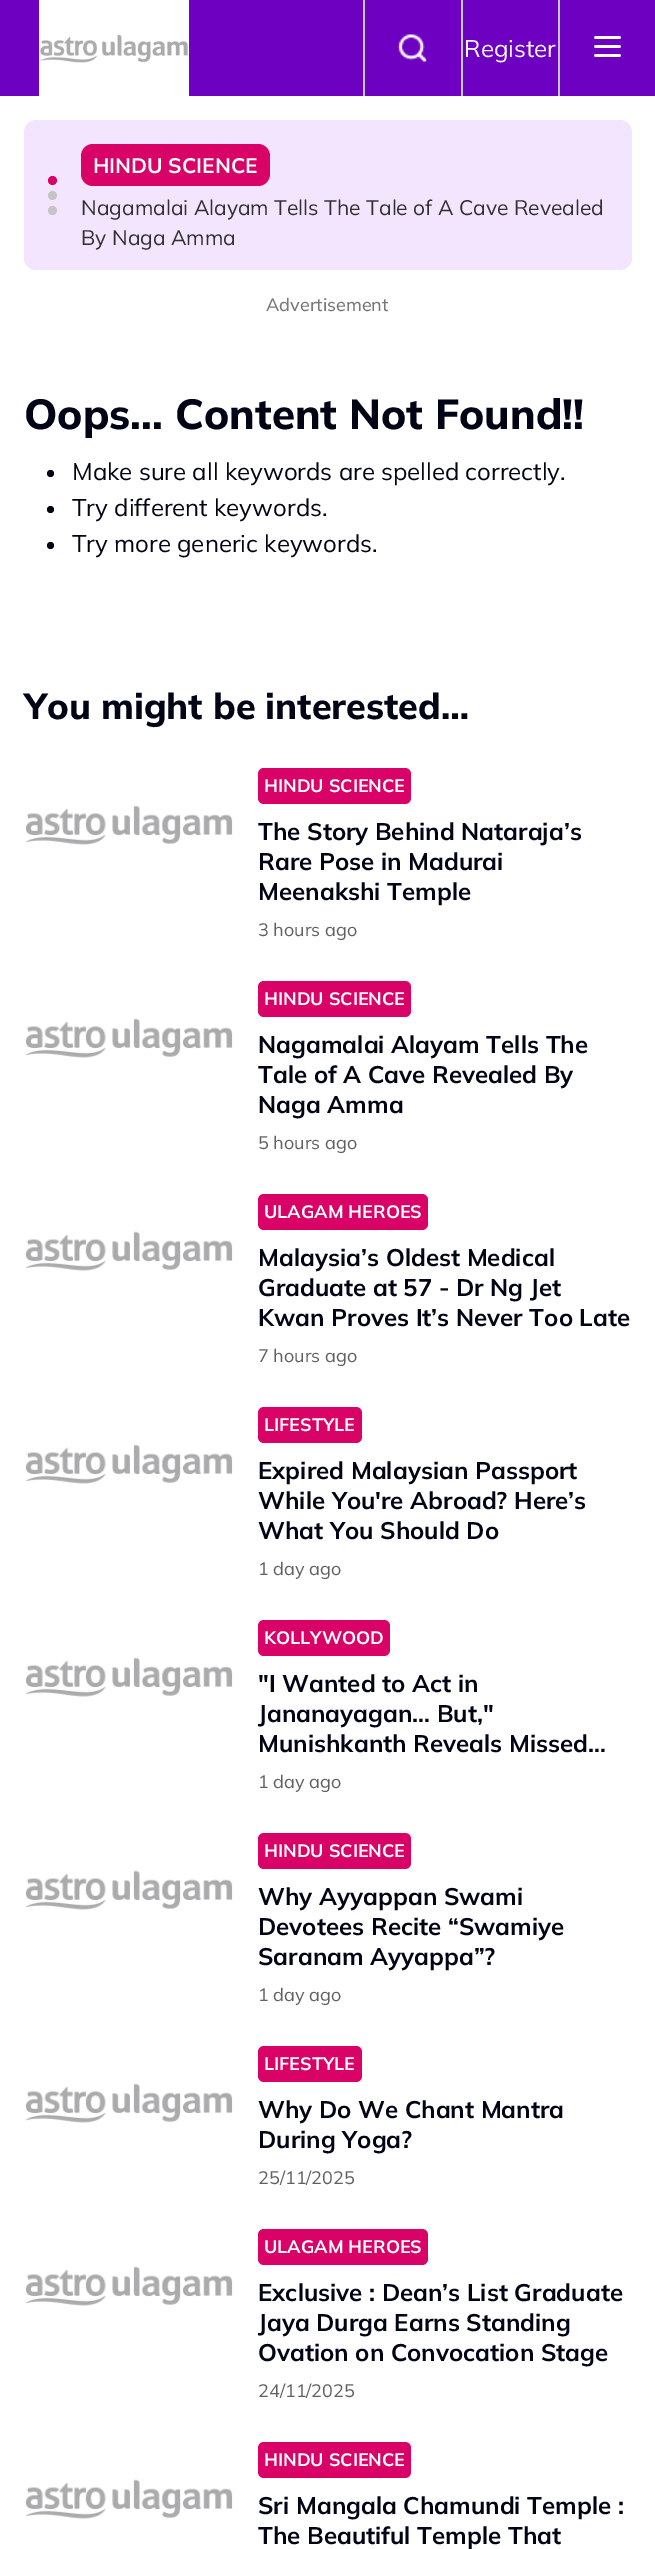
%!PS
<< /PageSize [655 2549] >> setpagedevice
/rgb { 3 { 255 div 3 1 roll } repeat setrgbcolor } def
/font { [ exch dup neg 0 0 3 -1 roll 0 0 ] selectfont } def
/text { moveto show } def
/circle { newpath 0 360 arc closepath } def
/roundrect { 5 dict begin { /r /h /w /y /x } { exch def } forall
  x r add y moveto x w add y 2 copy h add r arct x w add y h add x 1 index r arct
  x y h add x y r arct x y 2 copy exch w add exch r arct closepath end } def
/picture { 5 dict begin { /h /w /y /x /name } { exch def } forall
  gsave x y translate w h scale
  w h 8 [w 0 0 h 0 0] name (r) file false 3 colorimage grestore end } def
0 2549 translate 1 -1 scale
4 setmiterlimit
255 255 255 rgb
0 0 655 2549 rectfill
110 0 194 rgb
0 0 655 96 rectfill
(img_01.rgb) 39 0 150 96 picture
197 197 198 rgb
461 0 2 96 rectfill
363 0 2 96 rectfill
(img_02.rgb) 398 34 29 28 picture
558 0 2 96 rectfill
(img_03.rgb) 594 36 27 21 picture
243 229 254 rgb
24 120 608 150 12 roundrect fill
217 3 104 rgb
52.5 180.5 4.5 circle fill
197 197 198 rgb
52.5 195.5 4.5 circle fill
52.5 210.5 4.5 circle fill
217 3 104 rgb
81 144 189 42 12 roundrect fill
1 4 20 rgb
50.5 473.5 3.5 circle fill
50.5 509.5 3.5 circle fill
50.5 545.5 3.5 circle fill
(img_04.rgb) 26 805 207 40 picture
217 3 104 rgb
258 768 153 36 6 roundrect fill
(img_04.rgb) 26 1018 207 40 picture
258 981 153 36 6 roundrect fill
(img_04.rgb) 26 1231 207 40 picture
258 1194 170 36 6 roundrect fill
(img_04.rgb) 26 1444 207 40 picture
258 1407 104 36 6 roundrect fill
(img_04.rgb) 26 1657 207 40 picture
258 1620 132 36 6 roundrect fill
(img_04.rgb) 26 1870 207 40 picture
258 1833 153 36 6 roundrect fill
(img_04.rgb) 26 2083 207 40 picture
258 2046 104 36 6 roundrect fill
(img_04.rgb) 26 2266 207 40 picture
258 2229 170 36 6 roundrect fill
(img_04.rgb) 26 2479 207 40 picture
258 2442 153 36 6 roundrect fill
/Mulish-Regular 24 font
255 255 255 rgb
(Register) 464 57 text
/Mulish-Bold 21 font
(HINDU SCIENCE) 93 173 text
/Mulish-Regular 21 font
48 48 49 rgb
(Nagamalai Alayam Tells The Tale of A Cave Revealed) 81 215 text
(By Naga Amma) 81 245 text
/Mulish-Medium 18 font
120 120 122 rgb
(Advertisement) 266 311 text
/Mulish-ExtraBold 42 font
1 4 20 rgb
(Oops... Content Not Found!!) 24 429 text
/Mulish-Regular 24 font
(Make sure all keywords are spelled correctly.) 72 480 text
(Try different keywords.) 72 516 text
(Try more generic keywords.) 72 552 text
/Mulish-ExtraBold 36 font
(You might be interested…) 24 719 text
/Mulish-Bold 18 font
255 255 255 rgb
(HINDU SCIENCE) 264 792 text
/Mulish-Bold 24 font
1 4 20 rgb
(The Story Behind Nataraja’s) 258 840 text
(Rare Pose in Madurai) 258 870 text
(Meenakshi Temple) 258 900 text
/Mulish-Regular 18 font
96 96 98 rgb
(3 hours ago) 258 936 text
/Mulish-Bold 18 font
255 255 255 rgb
(HINDU SCIENCE) 264 1005 text
/Mulish-Bold 24 font
1 4 20 rgb
(Nagamalai Alayam Tells The) 258 1053 text
(Tale of A Cave Revealed By) 258 1083 text
(Naga Amma) 258 1113 text
/Mulish-Regular 18 font
96 96 98 rgb
(5 hours ago) 258 1149 text
/Mulish-Bold 18 font
255 255 255 rgb
(ULAGAM HEROES) 264 1218 text
/Mulish-Bold 24 font
1 4 20 rgb
(Malaysia’s Oldest Medical) 258 1266 text
(Graduate at 57 - Dr Ng Jet) 258 1296 text
(Kwan Proves It’s Never Too Late) 258 1326 text
/Mulish-Regular 18 font
96 96 98 rgb
(7 hours ago) 258 1362 text
/Mulish-Bold 18 font
255 255 255 rgb
(LIFESTYLE) 264 1431 text
/Mulish-Bold 24 font
1 4 20 rgb
(Expired Malaysian Passport) 258 1479 text
(While You're Abroad? Here’s) 258 1509 text
(What You Should Do) 258 1539 text
/Mulish-Regular 18 font
96 96 98 rgb
(1 day ago) 258 1575 text
/Mulish-Bold 18 font
255 255 255 rgb
(KOLLYWOOD) 264 1644 text
/Mulish-Bold 24 font
1 4 20 rgb
("I Wanted to Act in) 258 1692 text
(Jananayagan… But,") 258 1722 text
(Munishkanth Reveals Missed…) 258 1752 text
/Mulish-Regular 18 font
96 96 98 rgb
(1 day ago) 258 1788 text
/Mulish-Bold 18 font
255 255 255 rgb
(HINDU SCIENCE) 264 1857 text
/Mulish-Bold 24 font
1 4 20 rgb
(Why Ayyappan Swami) 258 1905 text
(Devotees Recite “Swamiye) 258 1935 text
(Saranam Ayyappa”?) 258 1965 text
/Mulish-Regular 18 font
96 96 98 rgb
(1 day ago) 258 2001 text
/Mulish-Bold 18 font
255 255 255 rgb
(LIFESTYLE) 264 2070 text
/Mulish-Bold 24 font
1 4 20 rgb
(Why Do We Chant Mantra) 258 2118 text
(During Yoga?) 258 2148 text
/Mulish-Regular 18 font
96 96 98 rgb
(25/11/2025) 258 2184 text
/Mulish-Bold 18 font
255 255 255 rgb
(ULAGAM HEROES) 264 2253 text
/Mulish-Bold 24 font
1 4 20 rgb
(Exclusive : Dean’s List Graduate) 258 2301 text
(Jaya Durga Earns Standing) 258 2331 text
(Ovation on Convocation Stage) 258 2361 text
/Mulish-Regular 18 font
96 96 98 rgb
(24/11/2025) 258 2397 text
/Mulish-Bold 18 font
255 255 255 rgb
(HINDU SCIENCE) 264 2466 text
/Mulish-Bold 24 font
1 4 20 rgb
(Sri Mangala Chamundi Temple :) 258 2514 text
(The Beautiful Temple That) 258 2544 text
showpage
